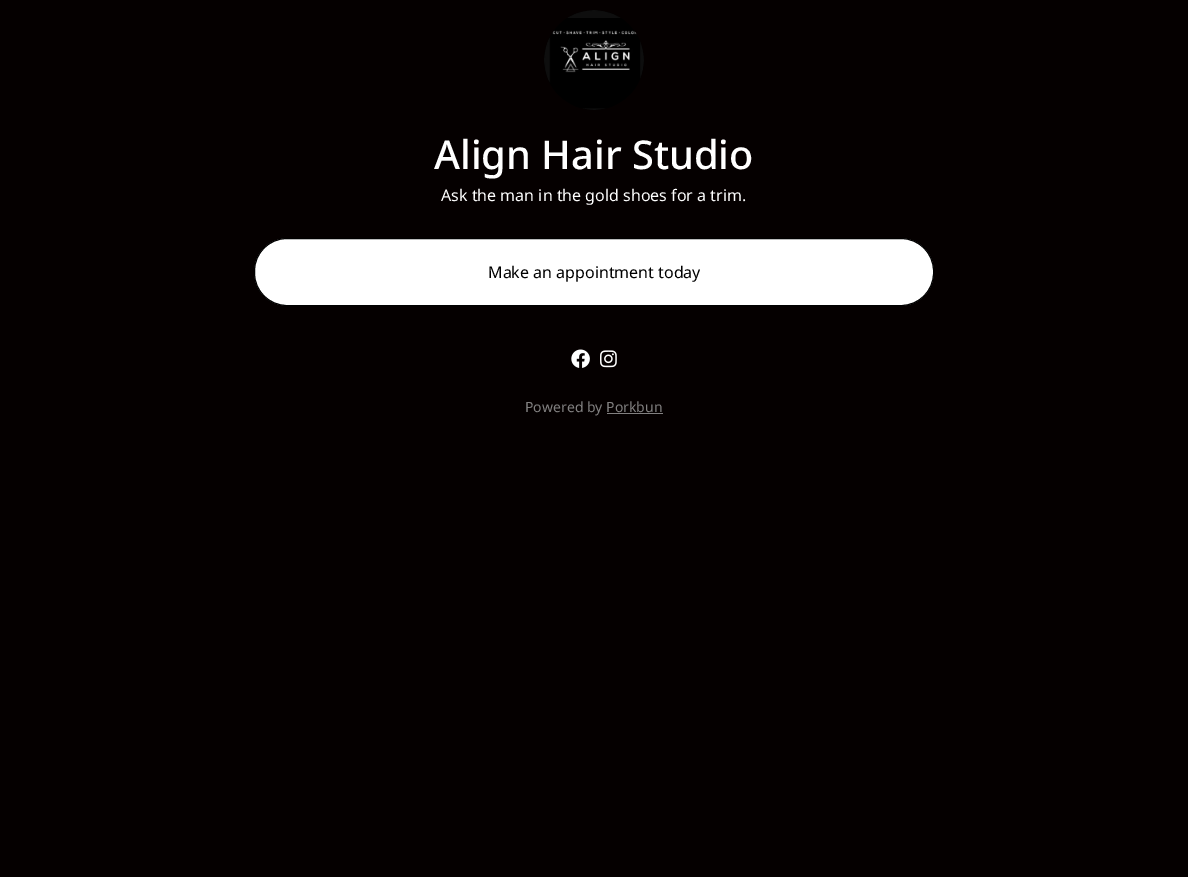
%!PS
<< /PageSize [1188 877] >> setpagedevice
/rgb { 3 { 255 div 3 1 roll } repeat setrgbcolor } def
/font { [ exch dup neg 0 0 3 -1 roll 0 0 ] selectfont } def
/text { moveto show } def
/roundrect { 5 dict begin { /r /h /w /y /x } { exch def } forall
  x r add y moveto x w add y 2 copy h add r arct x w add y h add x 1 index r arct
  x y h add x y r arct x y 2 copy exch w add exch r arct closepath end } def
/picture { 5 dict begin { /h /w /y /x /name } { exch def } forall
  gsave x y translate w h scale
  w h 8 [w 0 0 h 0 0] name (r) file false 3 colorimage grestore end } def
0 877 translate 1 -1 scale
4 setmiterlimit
5 0 0 rgb
0 0 1188 877 rectfill
(img_01.rgb) 544 10 100 100 picture
255 255 255 rgb
254.5 238.5 679 67 32.5 roundrect gsave fill grestore
0 0 0 rgb
stroke
(img_02.rgb) 571 349 19 19 picture
(img_03.rgb) 600 350 17 18 picture
130 128 128 rgb
607 413 56 1 rectfill
/NotoSans-Medium 39.75 font
255 255 255 rgb
(Align Hair Studio) 434 169 text
/NotoSans-Regular 16 font
(Ask the man in the gold shoes for a trim.) 441 201 text
0 0 0 rgb
(Make an appointment today) 488 278 text
/NotoSans-Regular 14 font
130 128 128 rgb
(Powered by Porkbun) 525 412 text
showpage
